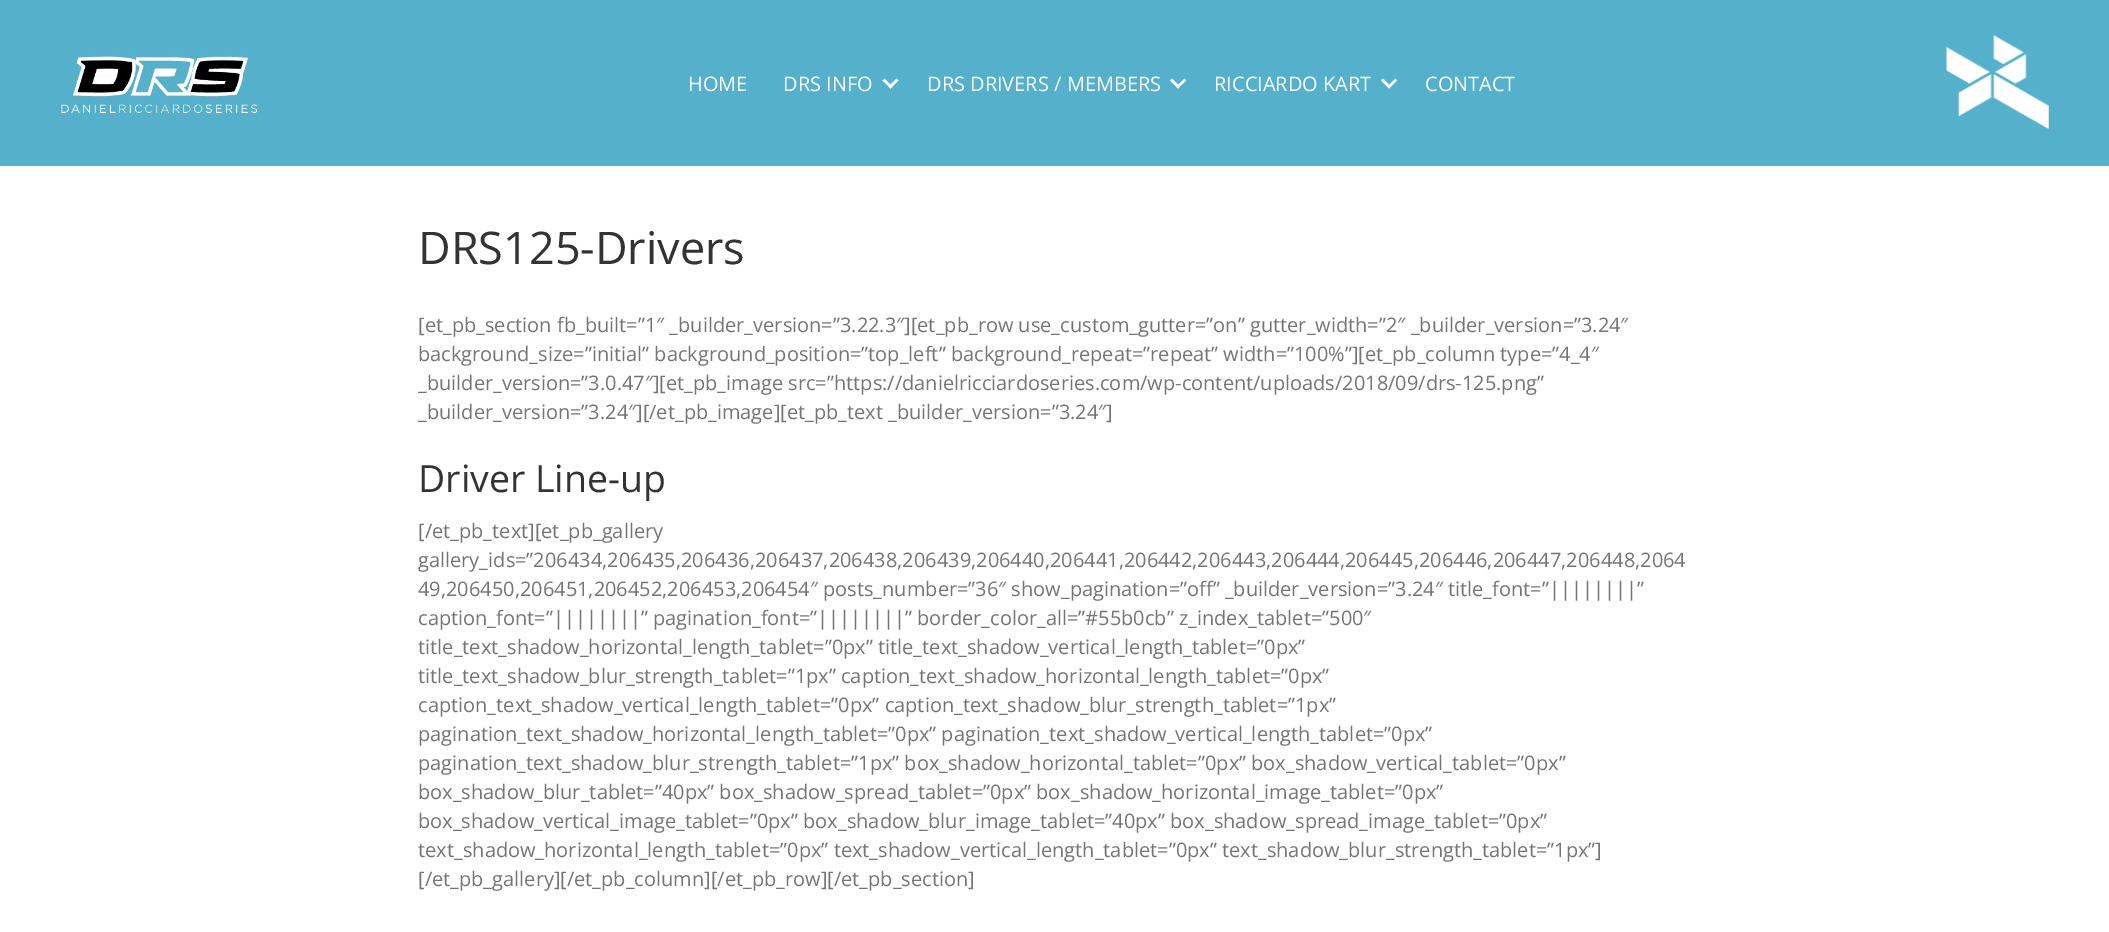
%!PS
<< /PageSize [2109 932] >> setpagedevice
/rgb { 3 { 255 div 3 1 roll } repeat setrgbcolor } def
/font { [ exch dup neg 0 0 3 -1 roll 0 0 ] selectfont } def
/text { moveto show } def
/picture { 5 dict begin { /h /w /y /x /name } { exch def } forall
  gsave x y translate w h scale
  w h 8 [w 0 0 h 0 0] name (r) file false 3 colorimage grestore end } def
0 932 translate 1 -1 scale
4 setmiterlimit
255 255 255 rgb
0 0 2109 932 rectfill
85 176 203 rgb
0 0 2109 166 rectfill
(img_01.rgb) 61 54 196 60 picture
255 255 255 rgb
896.5 78.5 moveto 2 2 rlineto -8 8 rlineto -2 -2 rlineto closepath fill
884.5 78.5 moveto 8 8 rlineto -2 2 rlineto -8 -8 rlineto closepath fill
1184.5 78.5 moveto 1.5 2 rlineto -8 8 rlineto -1.5 -2 rlineto closepath fill
1172 78.5 moveto 8 8 rlineto -2 2 rlineto -8 -8 rlineto closepath fill
1395.5 78.5 moveto 1.5 2 rlineto -8 8 rlineto -1.5 -2 rlineto closepath fill
1383 78.5 moveto 8 8 rlineto -2 2 rlineto -8 -8 rlineto closepath fill
(img_02.rgb) 1946 35 103 95 picture
/OpenSans-Regular 20 font
(HOME) 688 91 text
(DRS INFO) 783 91 text
(DRS DRIVERS / MEMBERS) 927 91 text
(RICCIARDO KART) 1214 91 text
(CONTACT) 1425 91 text
/OpenSans-Regular 45 font
51 51 51 rgb
(DRS125-Drivers) 418 264 text
/OpenSans-Regular 20 font
117 117 117 rgb
([et_pb_section fb_built=”1″ _builder_version=”3.22.3″][et_pb_row use_custom_gutter=”on” gutter_width=”2″ _builder_version=”3.24″) 418 332 text
(background_size=”initial” background_position=”top_left” background_repeat=”repeat” width=”100%”][et_pb_column type=”4_4″) 418 361 text
(_builder_version=”3.0.47″][et_pb_image src=”https://danielricciardoseries.com/wp-content/uploads/2018/09/drs-125.png”) 418 390 text
(_builder_version=”3.24″][/et_pb_image][et_pb_text _builder_version=”3.24″]) 418 419 text
/OpenSans-Regular 37.5 font
51 51 51 rgb
(Driver Line-up) 418 492 text
/OpenSans-Regular 20 font
117 117 117 rgb
([/et_pb_text][et_pb_gallery) 418 538 text
(gallery_ids=”206434,206435,206436,206437,206438,206439,206440,206441,206442,206443,206444,206445,206446,206447,206448,2064) 418 567 text
(49,206450,206451,206452,206453,206454″ posts_number=”36″ show_pagination=”off” _builder_version=”3.24″ title_font=”||||||||”) 418 596 text
(caption_font=”||||||||” pagination_font=”||||||||” border_color_all=”#55b0cb” z_index_tablet=”500″) 418 625 text
(title_text_shadow_horizontal_length_tablet=”0px” title_text_shadow_vertical_length_tablet=”0px”) 418 654 text
(title_text_shadow_blur_strength_tablet=”1px” caption_text_shadow_horizontal_length_tablet=”0px”) 418 683 text
(caption_text_shadow_vertical_length_tablet=”0px” caption_text_shadow_blur_strength_tablet=”1px”) 418 712 text
(pagination_text_shadow_horizontal_length_tablet=”0px” pagination_text_shadow_vertical_length_tablet=”0px”) 418 741 text
(pagination_text_shadow_blur_strength_tablet=”1px” box_shadow_horizontal_tablet=”0px” box_shadow_vertical_tablet=”0px”) 418 770 text
(box_shadow_blur_tablet=”40px” box_shadow_spread_tablet=”0px” box_shadow_horizontal_image_tablet=”0px”) 418 799 text
(box_shadow_vertical_image_tablet=”0px” box_shadow_blur_image_tablet=”40px” box_shadow_spread_image_tablet=”0px”) 418 828 text
(text_shadow_horizontal_length_tablet=”0px” text_shadow_vertical_length_tablet=”0px” text_shadow_blur_strength_tablet=”1px”]) 418 857 text
([/et_pb_gallery][/et_pb_column][/et_pb_row][/et_pb_section]) 418 886 text
showpage
